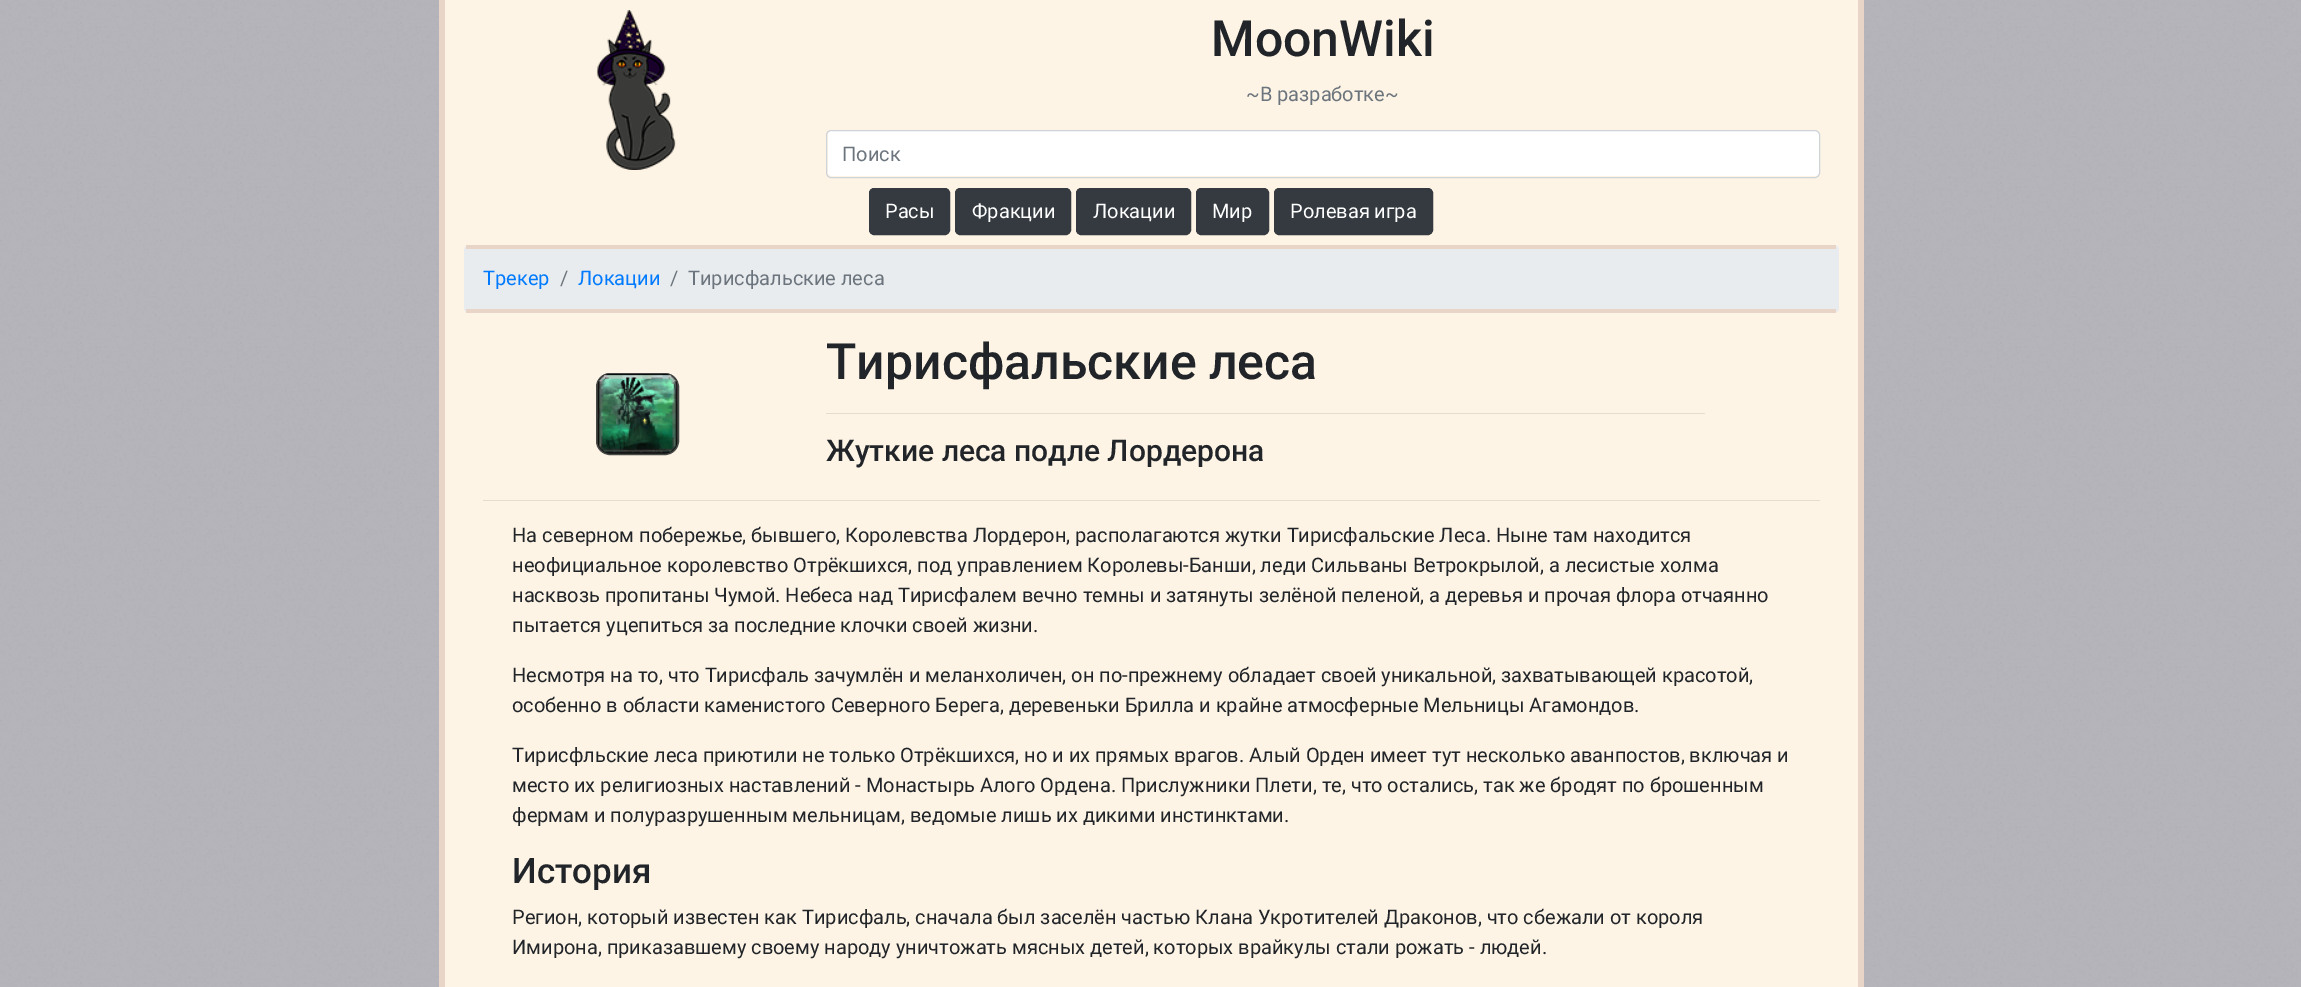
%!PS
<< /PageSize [2301 987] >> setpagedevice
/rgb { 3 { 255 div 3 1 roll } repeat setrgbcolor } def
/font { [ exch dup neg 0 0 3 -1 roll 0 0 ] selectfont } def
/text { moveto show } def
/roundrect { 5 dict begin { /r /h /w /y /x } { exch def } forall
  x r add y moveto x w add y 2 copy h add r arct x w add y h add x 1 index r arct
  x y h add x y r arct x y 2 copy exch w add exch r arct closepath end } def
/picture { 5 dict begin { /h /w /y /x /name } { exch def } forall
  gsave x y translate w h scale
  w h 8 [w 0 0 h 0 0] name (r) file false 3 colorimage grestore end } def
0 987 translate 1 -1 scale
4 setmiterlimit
255 255 255 rgb
0 0 2301 987 rectfill
(img_01.rgb) 0 0 2301 987 picture
254 244 229 rgb
445 0 1413 987 rectfill
232 213 200 rgb
1858 0 6 987 rectfill
439 0 6 987 rectfill
(img_02.rgb) 596 10 80 160 picture
255 255 255 rgb
828 131 991 45 4 roundrect fill
206 212 218 rgb
826.5 130.5 993 47 4.5 roundrect stroke
52 58 64 rgb
869.5 188.5 80 46 4.5 roundrect gsave fill grestore
stroke
955.5 188.5 115 46 4.5 roundrect gsave fill grestore
stroke
1076.5 188.5 114 46 4.5 roundrect gsave fill grestore
stroke
1196.5 188.5 72 46 4.5 roundrect gsave fill grestore
stroke
1274.5 188.5 158 46 4.5 roundrect gsave fill grestore
stroke
233 236 239 rgb
464 245 1375 68 5 roundrect fill
232 213 200 rgb
466 245 1370 4 rectfill
466 309 1370 4 rectfill
71 73 71 rgb
596.5 373.5 82 81 13.5 roundrect gsave fill grestore
stroke
(img_03.rgb) 597 373 81 81 picture
229 220 206 rgb
826 413 879 1 rectfill
483 500 1337 1 rectfill
/Roboto-Medium 50 font
33 37 41 rgb
(MoonWiki) 1211 56 text
/Roboto-Regular 20 font
108 117 125 rgb
(~В разработке~) 1246 101 text
(Поиск) 842 161 text
255 255 255 rgb
(Расы) 885 218 text
(Фракции) 972 218 text
(Локации) 1093 218 text
(Мир) 1212 218 text
(Ролевая игра) 1290 218 text
0 123 255 rgb
(Трекер) 483 285 text
108 117 125 rgb
(/) 560 285 text
0 123 255 rgb
(Локации) 578 285 text
108 117 125 rgb
(/) 670 285 text
(Тирисфальские леса) 688 285 text
/Roboto-Medium 50 font
33 37 41 rgb
(Тирисфальские леса) 826 379 text
/Roboto-Medium 30 font
(Жуткие леса подле Лордерона) 826 461 text
/Roboto-Regular 20 font
(На северном побережье, бывшего, Королевства Лордерон, располагаются жутки Тирисфальские Леса. Ныне там находится) 512 542 text
(неофициальное королевство Отрёкшихся, под управлением Королевы-Банши, леди Сильваны Ветрокрылой, а лесистые холма) 512 572 text
(насквозь пропитаны Чумой. Небеса над Тирисфалем вечно темны и затянуты зелёной пеленой, а деревья и прочая флора отчаянно) 512 602 text
(пытается уцепиться за последние клочки своей жизни.) 512 632 text
(Несмотря на то, что Тирисфаль зачумлён и меланхоличен, он по-прежнему обладает своей уникальной, захватывающей красотой,) 512 682 text
(особенно в области каменистого Северного Берега, деревеньки Брилла и крайне атмосферные Мельницы Агамондов.) 512 712 text
(Тирисфльские леса приютили не только Отрёкшихся, но и их прямых врагов. Алый Орден имеет тут несколько аванпостов, включая и) 512 762 text
(место их религиозных наставлений - Монастырь Алого Ордена. Прислужники Плети, те, что остались, так же бродят по брошенным) 512 792 text
(фермам и полуразрушенным мельницам, ведомые лишь их дикими инстинктами.) 512 822 text
/Roboto-Medium 35 font
(История) 512 883 text
/Roboto-Regular 20 font
(Регион, который известен как Тирисфаль, сначала был заселён частью Клана Укротителей Драконов, что сбежали от короля) 512 924 text
(Имирона, приказавшему своему народу уничтожать мясных детей, которых врайкулы стали рожать - людей.) 512 954 text
showpage
